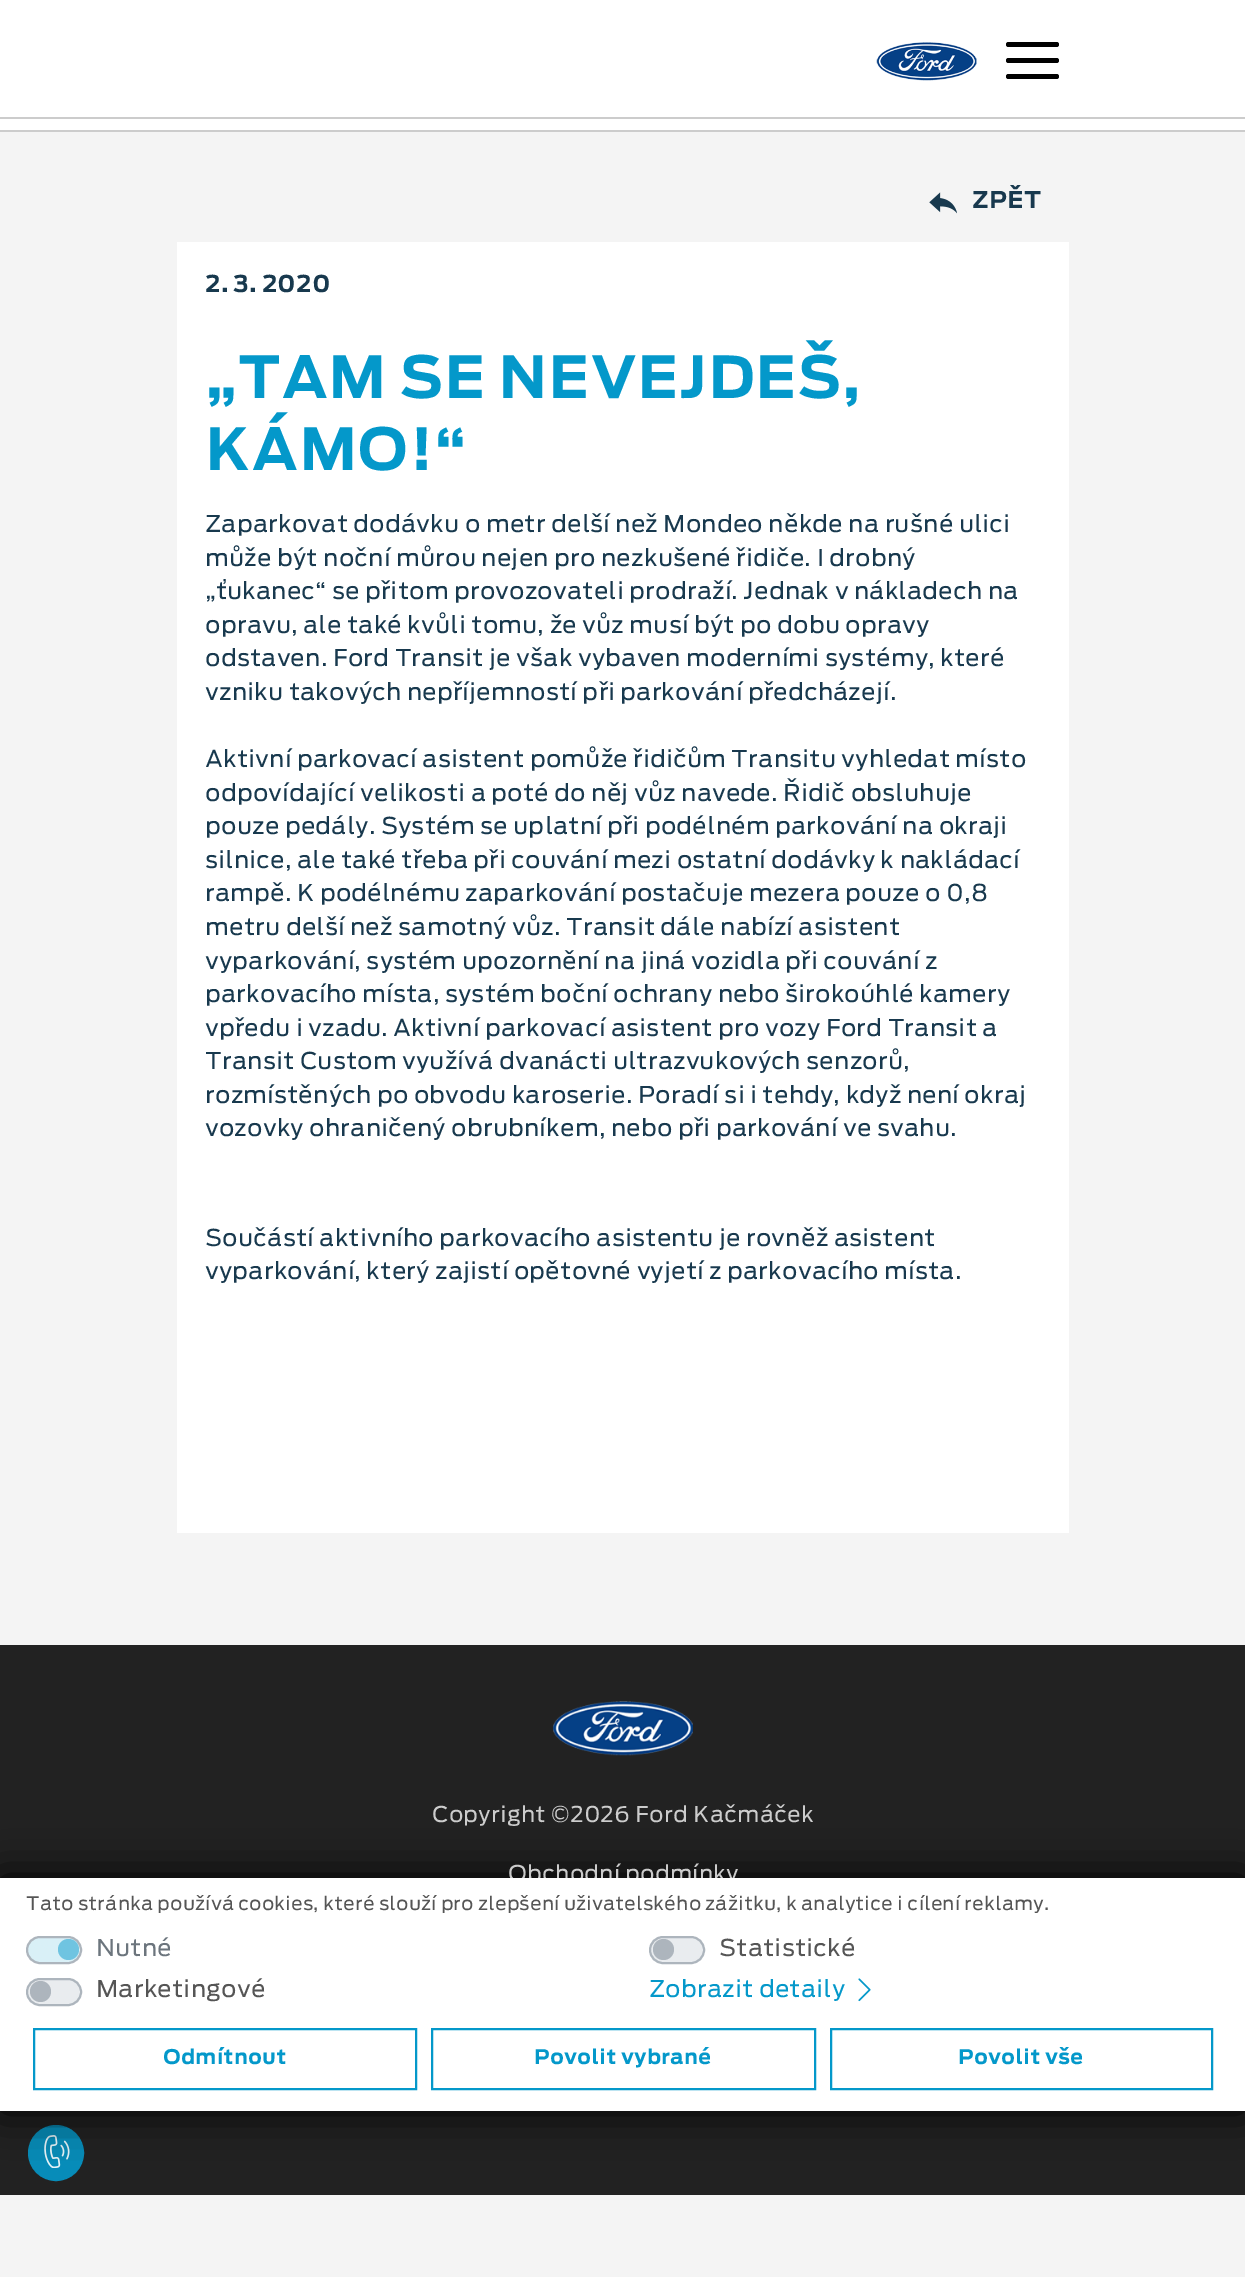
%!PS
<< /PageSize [1245 2277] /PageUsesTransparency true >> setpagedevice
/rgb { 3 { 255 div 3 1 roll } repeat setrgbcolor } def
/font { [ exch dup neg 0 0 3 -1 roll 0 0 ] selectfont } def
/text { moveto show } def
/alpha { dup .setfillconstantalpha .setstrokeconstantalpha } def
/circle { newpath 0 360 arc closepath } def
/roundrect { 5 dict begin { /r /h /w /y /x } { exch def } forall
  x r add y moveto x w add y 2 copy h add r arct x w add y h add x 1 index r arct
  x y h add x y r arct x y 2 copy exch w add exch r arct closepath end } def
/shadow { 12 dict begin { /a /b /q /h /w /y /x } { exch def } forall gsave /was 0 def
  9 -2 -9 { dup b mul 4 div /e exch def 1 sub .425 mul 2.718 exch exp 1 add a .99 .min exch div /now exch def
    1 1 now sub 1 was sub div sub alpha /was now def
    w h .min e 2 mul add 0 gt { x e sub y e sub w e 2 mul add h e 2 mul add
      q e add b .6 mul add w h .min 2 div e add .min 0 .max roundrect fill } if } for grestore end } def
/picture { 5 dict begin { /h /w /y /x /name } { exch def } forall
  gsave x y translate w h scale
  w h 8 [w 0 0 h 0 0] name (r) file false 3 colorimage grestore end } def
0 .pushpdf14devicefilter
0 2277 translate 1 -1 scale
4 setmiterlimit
244 244 244 rgb
0 0 1245 2277 rectfill
255 255 255 rgb
0 0 1245 130 rectfill
204 204 204 rgb
0 117 1245 2 rectfill
(img_01.rgb) 876 42 101 39 picture
0 0 0 rgb
1006 58 53 5 2.5 roundrect fill
1006 42 53 5 2.5 roundrect fill
1006 74 53 5 2.5 roundrect fill
204 204 204 rgb
0 130 1245 2 rectfill
255 255 255 rgb
177 242 892 1291 rectfill
(img_02.rgb) 929 192 28 22 picture
34 34 34 rgb
0 1645 1245 233 rectfill
(img_03.rgb) 553 1701 140 55 picture
0 2111 1245 84 rectfill
7 140 185 rgb
56 2153 27 circle gsave fill grestore
2 setlinewidth
stroke
(img_05.rgb) 44 2135 26 33 picture
0 0 0 rgb
0 1878 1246 233 0 22 1 shadow
/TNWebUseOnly-Bold 22.4 font
24 57 78 rgb
(ZPĚT) 972 208 text
(2. 3. 2020) 205 292 text
/TNWebUseOnly-Bold 56 font
4 152 202 rgb
(„TAM SE NEVEJDEŠ,) 205 398 text
(KÁMO!“) 205 470 text
/TNWebUseOnly-Regular 22.4 font
24 57 78 rgb
(Zaparkovat dodávku o metr delší než Mondeo někde na rušné ulici) 205 532 text
(může být noční můrou nejen pro nezkušené řidiče. I drobný) 205 566 text
(„ťukanec“ se přitom provozovateli prodraží. Jednak v nákladech na) 205 599 text
(opravu, ale také kvůli tomu, že vůz musí být po dobu opravy) 205 633 text
(odstaven. Ford Transit je však vybaven moderními systémy, které) 205 666 text
(vzniku takových nepříjemností při parkování předcházejí.) 205 700 text
(Aktivní parkovací asistent pomůže řidičům Transitu vyhledat místo) 205 767 text
(odpovídající velikosti a poté do něj vůz navede. Řidič obsluhuje) 205 801 text
(pouze pedály. Systém se uplatní při podélném parkování na okraji) 205 834 text
(silnice, ale také třeba při couvání mezi ostatní dodávky k nakládací) 205 868 text
(rampě. K podélnému zaparkování postačuje mezera pouze o 0,8) 205 901 text
(metru delší než samotný vůz. Transit dále nabízí asistent) 205 935 text
(vyparkování, systém upozornění na jiná vozidla při couvání z) 205 969 text
(parkovacího místa, systém boční ochrany nebo širokoúhlé kamery) 205 1002 text
(vpředu i vzadu. Aktivní parkovací asistent pro vozy Ford Transit a) 205 1036 text
(Transit Custom využívá dvanácti ultrazvukových senzorů,) 205 1069 text
(rozmístěných po obvodu karoserie. Poradí si i tehdy, když není okraj) 205 1103 text
(vozovky ohraničený obrubníkem, nebo při parkování ve svahu.) 205 1136 text
(Součástí aktivního parkovacího asistentu je rovněž asistent) 205 1246 text
(vyparkování, který zajistí opětovné vyjetí z parkovacího místa.) 205 1279 text
/TNWebUseOnly-Regular 21 font
204 204 204 rgb
(Copyright ©2026 Ford Kačmáček) 432 1822 text
(Obchodní podmínky) 508 1881 text
255 255 255 rgb
0 1878 1245 233 rectfill
/TNWebUseOnly-Regular 17.92 font
85 85 85 rgb
(Tato stránka používá cookies, které slouží pro zlepšení uživatelského zážitku, k analytice i cílení reklamy.) 26 1910 text
217 240 247 rgb
27 1937 54 26 13 roundrect gsave fill grestore
173 181 189 rgb
stroke
/TNWebUseOnly-Regular 22.4 font
108 117 125 rgb
(Nutné) 96 1956 text
111 196 225 rgb
68.5 1949.5 10.5 circle fill
233 236 239 rgb
650 1937 54 26 13 roundrect gsave fill grestore
173 181 189 rgb
stroke
85 85 85 rgb
(Statistické) 719 1956 text
173 181 189 rgb
663.5 1949.5 10.5 circle fill
233 236 239 rgb
27 1979 54 26 13 roundrect gsave fill grestore
173 181 189 rgb
stroke
85 85 85 rgb
(Marketingové) 96 1997 text
173 181 189 rgb
40.5 1991.5 10.5 circle fill
4 152 202 rgb
(Zobrazit detaily) 649 1997 text
(img_04.rgb) 858 1978 13 24 picture
34 2029 382 60 rectstroke
/TNWebUseOnly-Bold 19.5 font
(Odmítnout) 163 2064 text
432 2029 383 60 rectstroke
(Povolit vybrané) 534 2064 text
831 2029 381 60 rectstroke
(Povolit vše) 958 2064 text
.poppdf14devicefilter showpage
